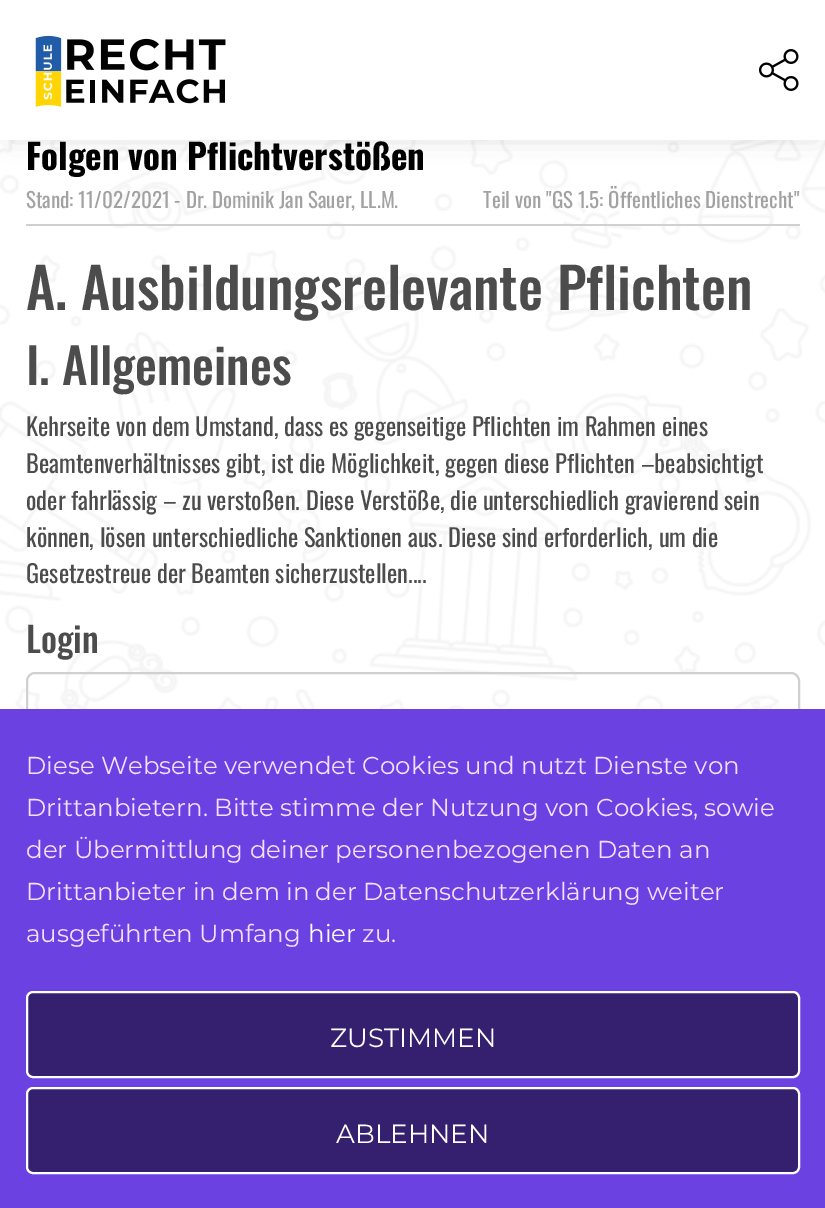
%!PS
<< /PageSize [825 1208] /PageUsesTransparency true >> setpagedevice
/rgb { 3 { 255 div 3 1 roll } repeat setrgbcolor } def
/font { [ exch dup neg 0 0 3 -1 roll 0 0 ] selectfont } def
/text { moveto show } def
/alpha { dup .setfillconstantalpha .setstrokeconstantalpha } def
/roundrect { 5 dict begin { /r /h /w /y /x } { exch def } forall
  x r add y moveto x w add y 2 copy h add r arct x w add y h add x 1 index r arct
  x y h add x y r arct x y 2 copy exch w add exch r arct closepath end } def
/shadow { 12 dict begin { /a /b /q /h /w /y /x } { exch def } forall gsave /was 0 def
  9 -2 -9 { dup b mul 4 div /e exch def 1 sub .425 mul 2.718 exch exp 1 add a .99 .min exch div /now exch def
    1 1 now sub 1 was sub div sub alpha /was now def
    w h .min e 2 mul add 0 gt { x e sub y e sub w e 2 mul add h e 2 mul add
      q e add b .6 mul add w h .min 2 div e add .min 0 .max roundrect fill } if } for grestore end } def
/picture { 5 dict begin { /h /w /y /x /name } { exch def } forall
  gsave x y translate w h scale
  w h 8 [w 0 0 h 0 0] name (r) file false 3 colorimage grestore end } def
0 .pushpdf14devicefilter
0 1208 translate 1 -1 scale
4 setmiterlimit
255 255 255 rgb
0 0 825 1208 rectfill
(img_01.rgb) 0 140 825 569 picture
0 0 0 rgb
11 16 805 119 0 13 0.18 shadow
255 255 255 rgb
0 0 825 140 rectfill
(img_02.rgb) 35 35 191 72 picture
(img_03.rgb) 759 49 40 42 picture
208 208 208 rgb
26 224 774 2 rectfill
2 setlinewidth
27 673 772 73 8 roundrect stroke
108 65 226 rgb
0 709 825 499 rectfill
53 31 111 rgb
27 992 772 85 6 roundrect gsave fill grestore
255 255 255 rgb
stroke
53 31 111 rgb
27 1088 772 85 6 roundrect gsave fill grestore
255 255 255 rgb
stroke
/Oswald-Bold 35 font
0 0 0 rgb
(Folgen von Pflichtverstößen) 26 170 text
/Oswald-Regular 21 font
162 162 162 rgb
(Stand: 11/02/2021 - Dr. Dominik Jan Sauer, LL.M.) 26 208 text
(Teil von "GS 1.5: Öffentliches Dienstrecht") 483 208 text
/Oswald-Medium 56 font
76 76 76 rgb
(A. Ausbildungsrelevante Pflichten) 26 310 text
/Oswald-Medium 49 font
(I. Allgemeines) 26 385 text
/Oswald-Regular 24.5 font
(Kehrseite von dem Umstand, dass es gegenseitige Pflichten im Rahmen eines) 26 436 text
(Beamtenverhältnisses gibt, ist die Möglichkeit, gegen diese Pflichten –beabsichtigt) 26 473 text
(oder fahrlässig – zu verstoßen. Diese Verstöße, die unterschiedlich gravierend sein) 26 510 text
(können, lösen unterschiedliche Sanktionen aus. Diese sind erforderlich, um die) 26 547 text
(Gesetzestreue der Beamten sicherzustellen....) 26 583 text
/Oswald-Medium 35 font
(Login) 26 653 text
/Montserrat-Regular 24.5 font
243 224 255 rgb
(Diese Webseite verwendet Cookies und nutzt Dienste von) 26 774 text
(Drittanbietern. Bitte stimme der Nutzung von Cookies, sowie) 26 816 text
(der Übermittlung deiner personenbezogenen Daten an) 26 858 text
(Drittanbieter in dem in der Datenschutzerklärung weiter) 26 900 text
(ausgeführten Umfang) 26 942 text
255 255 255 rgb
(hier) 308 942 text
243 224 255 rgb
(zu.) 362 942 text
/Montserrat-Regular 26.25 font
255 255 255 rgb
(ZUSTIMMEN) 330 1047 text
(ABLEHNEN) 336 1143 text
.poppdf14devicefilter showpage
